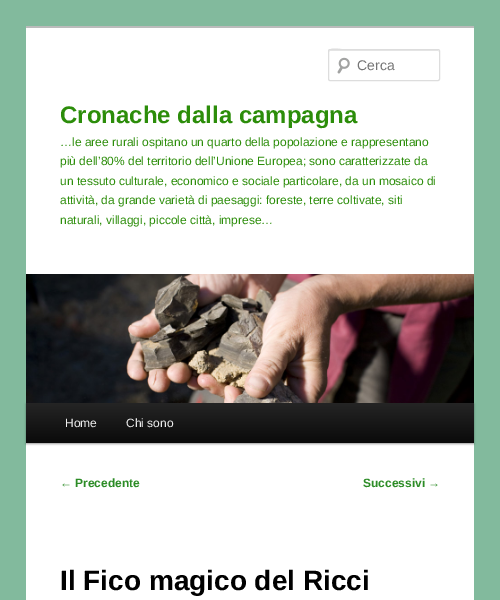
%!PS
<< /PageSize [500 600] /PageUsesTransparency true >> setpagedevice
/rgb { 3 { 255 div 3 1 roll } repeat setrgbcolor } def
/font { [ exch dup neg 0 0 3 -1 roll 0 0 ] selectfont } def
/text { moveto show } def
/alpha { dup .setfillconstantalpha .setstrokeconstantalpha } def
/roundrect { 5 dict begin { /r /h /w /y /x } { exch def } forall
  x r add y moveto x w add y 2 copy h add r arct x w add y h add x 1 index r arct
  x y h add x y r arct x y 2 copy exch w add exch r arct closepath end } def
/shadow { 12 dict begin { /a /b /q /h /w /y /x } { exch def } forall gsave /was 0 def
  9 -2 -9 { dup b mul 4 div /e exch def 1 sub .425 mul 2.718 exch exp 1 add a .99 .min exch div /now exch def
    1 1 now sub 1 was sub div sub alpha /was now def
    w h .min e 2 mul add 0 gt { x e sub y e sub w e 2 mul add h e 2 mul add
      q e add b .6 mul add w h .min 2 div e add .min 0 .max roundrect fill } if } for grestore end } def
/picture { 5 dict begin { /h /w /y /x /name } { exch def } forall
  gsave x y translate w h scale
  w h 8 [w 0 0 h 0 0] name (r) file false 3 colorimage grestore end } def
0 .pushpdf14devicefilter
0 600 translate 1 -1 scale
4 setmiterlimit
130 186 157 rgb
0 0 500 600 rectfill
255 255 255 rgb
26 28 448 572 rectfill
187 187 187 rgb
26 26 448 2 rectfill
(img_01.rgb) 337 57 13 17 picture
230 230 230 rgb
330 51 moveto 109 0 rlineto 0 1 rlineto -1 -2 rlineto -90 0 rlineto -4 0 -19 -5 -19 2 rcurveto 0 -1 0 -1 1 -1 rcurveto closepath fill
221 221 221 rgb
328.5 49.5 111 31 1.5 roundrect stroke
0 0 0 rgb
26 404 448 40 0 1 0.4 shadow
(img_02.rgb) 26 274 448 129 picture
gsave 26 403 moveto 448 0 rlineto 0 40 rlineto -448 0 rlineto closepath clip newpath
<< /ShadingType 2 /ColorSpace /DeviceRGB /Coords [250 403 250 443] /Extend [true true] /Function << /FunctionType 2 /Domain [0 1] /C0 [0.145 0.145 0.145] /C1 [0.039 0.039 0.039] /N 1 >> >> shfill grestore
/LiberationSans-Regular 14 font
117 117 117 rgb
(Cerca) 357 70 text
/LiberationSans-Bold 24 font
44 141 10 rgb
(Cronache dalla campagna) 60 123 text
/LiberationSans-Regular 12 font
(…le aree rurali ospitano un quarto della popolazione e rappresentano) 60 146 text
(più dell’80% del territorio dell’Unione Europea; sono caratterizzate da) 60 165 text
(un tessuto culturale, economico e sociale particolare, da un mosaico di) 60 185 text
(attività, da grande varietà di paesaggi: foreste, terre coltivate, siti) 60 204 text
(naturali, villaggi, piccole città, imprese…) 60 224 text
238 238 238 rgb
(Home) 65 427 text
(Chi sono) 126 427 text
44 140 38 rgb
(←) 60 487 text
/LiberationSans-Bold 12 font
(Precedente) 75 487 text
(Successivi) 363 487 text
/LiberationSans-Regular 12 font
(→) 428 487 text
/LiberationSans-Bold 28 font
0 0 0 rgb
(Il Fico magico del Ricci) 60 590 text
.poppdf14devicefilter showpage
